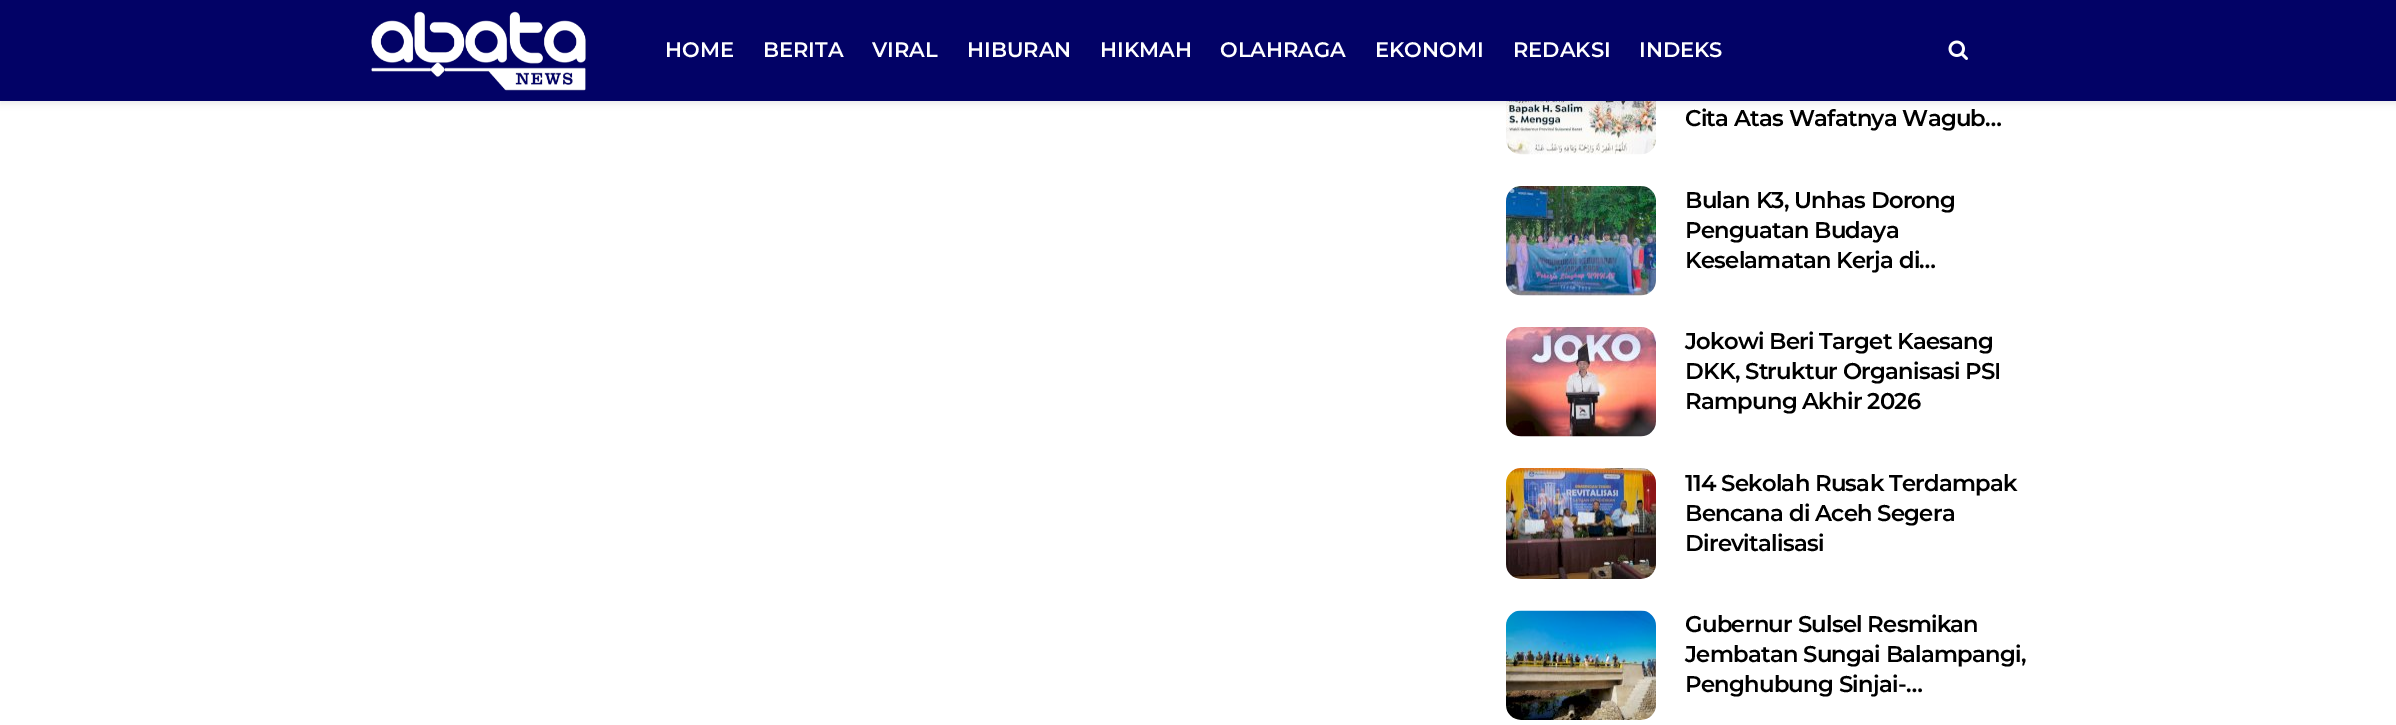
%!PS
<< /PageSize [2396 725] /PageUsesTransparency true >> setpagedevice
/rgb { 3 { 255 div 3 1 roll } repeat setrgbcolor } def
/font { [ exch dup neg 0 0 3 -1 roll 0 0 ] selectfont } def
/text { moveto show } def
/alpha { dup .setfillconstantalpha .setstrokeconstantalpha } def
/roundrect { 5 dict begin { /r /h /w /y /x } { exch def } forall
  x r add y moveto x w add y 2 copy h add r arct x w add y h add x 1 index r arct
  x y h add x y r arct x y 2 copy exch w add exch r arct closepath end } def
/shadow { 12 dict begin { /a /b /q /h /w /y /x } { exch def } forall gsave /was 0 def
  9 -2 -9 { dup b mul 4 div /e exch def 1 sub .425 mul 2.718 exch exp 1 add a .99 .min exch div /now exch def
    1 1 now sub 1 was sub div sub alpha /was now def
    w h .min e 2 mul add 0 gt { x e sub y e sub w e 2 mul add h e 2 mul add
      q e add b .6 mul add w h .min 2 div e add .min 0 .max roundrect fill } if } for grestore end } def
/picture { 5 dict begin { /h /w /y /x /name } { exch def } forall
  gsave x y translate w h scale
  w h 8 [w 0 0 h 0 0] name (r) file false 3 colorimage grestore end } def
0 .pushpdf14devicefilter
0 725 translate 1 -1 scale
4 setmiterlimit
255 255 255 rgb
0 0 2396 725 rectfill
(img_03.rgb) 1506 101 150 54 picture
0 0 0 rgb
0 3 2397 101 0 3 0.07 shadow
2 2 102 rgb
0 0 2396 101 rectfill
(img_01.rgb) 371 11 215 80 picture
(img_02.rgb) 1948 40 20 20 picture
(img_04.rgb) 1506 186 150 110 picture
(img_05.rgb) 1506 327 150 110 picture
(img_06.rgb) 1506 468 150 111 picture
(img_07.rgb) 1506 610 150 110 picture
/Montserrat-Thin 21 font
255 255 255 rgb
(HOME) 665 57 text
(BERITA) 763 57 text
(VIRAL) 872 57 text
(HIBURAN) 967 57 text
(HIKMAH) 1100 57 text
(OLAHRAGA) 1220 57 text
(EKONOMI) 1375 57 text
(REDAKSI) 1513 57 text
(INDEKS) 1639 57 text
/Montserrat-Thin 22.75 font
0 0 0 rgb
1685 126 moveto -0.75 0 (Cita Atas Wafatnya Wagub…) ashow
1685 208 moveto -0.75 0 (Bulan K3, Unhas Dorong) ashow
1685 238 moveto -0.75 0 (Penguatan Budaya) ashow
1685 268 moveto -0.75 0 (Keselamatan Kerja di…) ashow
1685 349 moveto -0.75 0 (Jokowi Beri Target Kaesang) ashow
1685 379 moveto -0.75 0 (DKK, Struktur Organisasi PSI) ashow
1685 409 moveto -0.75 0 (Rampung Akhir 2026) ashow
1685 491 moveto -0.75 0 (114 Sekolah Rusak Terdampak) ashow
1685 521 moveto -0.75 0 (Bencana di Aceh Segera) ashow
1685 551 moveto -0.75 0 (Direvitalisasi) ashow
1685 632 moveto -0.75 0 (Gubernur Sulsel Resmikan) ashow
1685 662 moveto -0.75 0 (Jembatan Sungai Balampangi,) ashow
1685 692 moveto -0.75 0 (Penghubung Sinjai-…) ashow
.poppdf14devicefilter showpage
